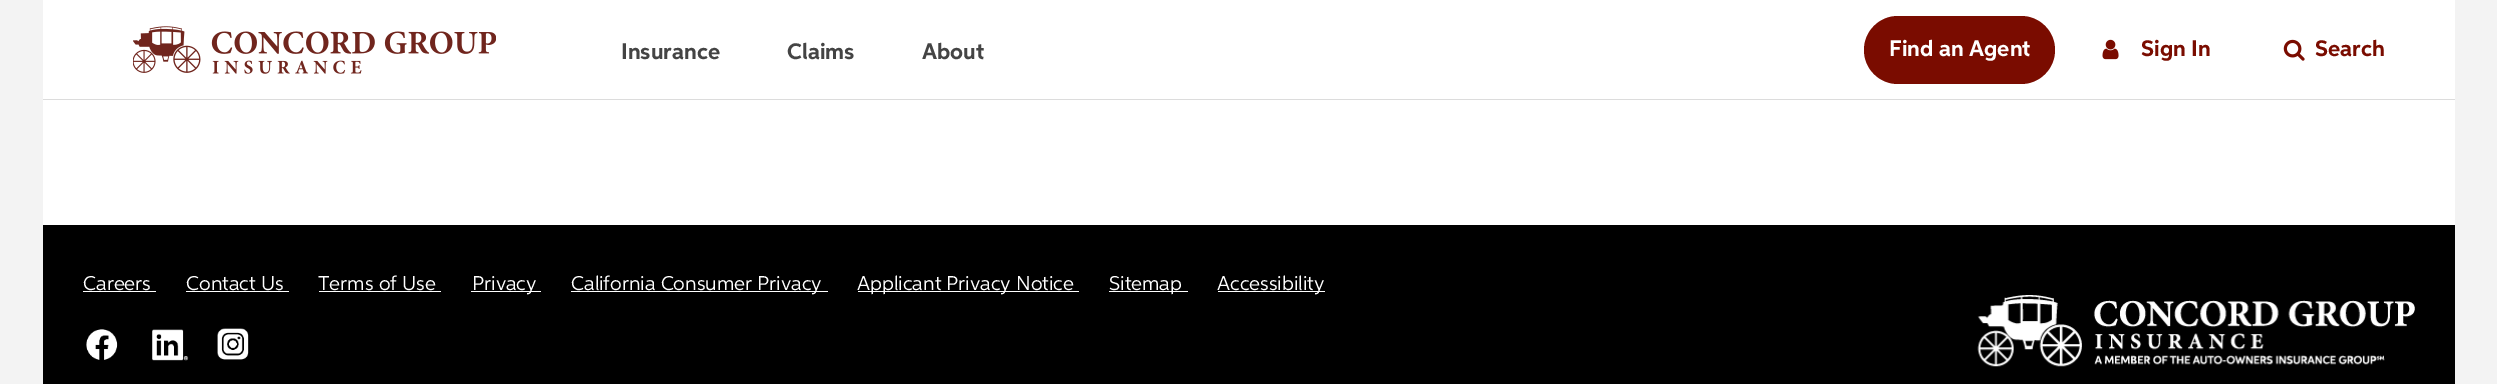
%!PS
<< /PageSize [2497 384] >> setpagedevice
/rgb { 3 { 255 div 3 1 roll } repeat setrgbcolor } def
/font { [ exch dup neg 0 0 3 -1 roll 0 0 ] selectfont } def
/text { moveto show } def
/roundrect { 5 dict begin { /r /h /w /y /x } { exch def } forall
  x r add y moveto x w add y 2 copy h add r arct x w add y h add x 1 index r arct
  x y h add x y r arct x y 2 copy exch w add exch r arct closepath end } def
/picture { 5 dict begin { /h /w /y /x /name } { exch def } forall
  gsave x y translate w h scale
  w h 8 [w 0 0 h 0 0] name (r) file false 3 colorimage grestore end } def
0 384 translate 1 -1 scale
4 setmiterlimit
243 243 243 rgb
0 0 2497 384 rectfill
255 255 255 rgb
43 0 2412 225 rectfill
220 220 220 rgb
43 99 2412 1 rectfill
(img_01.rgb) 133 26 363 48 picture
122 12 0 rgb
1864 16 191 68 34 roundrect fill
(img_02.rgb) 2102 39 17 21 picture
(img_03.rgb) 2283 39 22 22 picture
0 0 0 rgb
43 225 2412 159 rectfill
255 255 255 rgb
83 291 73 1 rectfill
186 291 103 1 rectfill
319 291 122 1 rectfill
471 291 70 1 rectfill
571 291 257 1 rectfill
858 291 221 1 rectfill
1109 291 79 1 rectfill
1218 291 107 1 rectfill
(img_04.rgb) 86 329 32 31 picture
(img_05.rgb) 152 329 37 32 picture
(img_06.rgb) 217 328 32 32 picture
(img_07.rgb) 1977 295 438 72 picture
/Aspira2-Regular 22.5 font
68 68 68 rgb
(Insurance) 621 59 text
(Claims) 787 59 text
(About) 922 59 text
255 255 255 rgb
(Find an Agent) 1889 56 text
122 12 0 rgb
(Sign In) 2141 56 text
(Search) 2315 56 text
/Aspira-Regular 20 font
255 255 255 rgb
(Careers) 83 290 text
(Contact Us) 186 290 text
(Terms of Use) 318 290 text
(Privacy) 472 290 text
(California Consumer Privacy) 571 290 text
(Applicant Privacy Notice) 857 290 text
(Sitemap) 1109 290 text
(Accessibility) 1217 290 text
showpage
